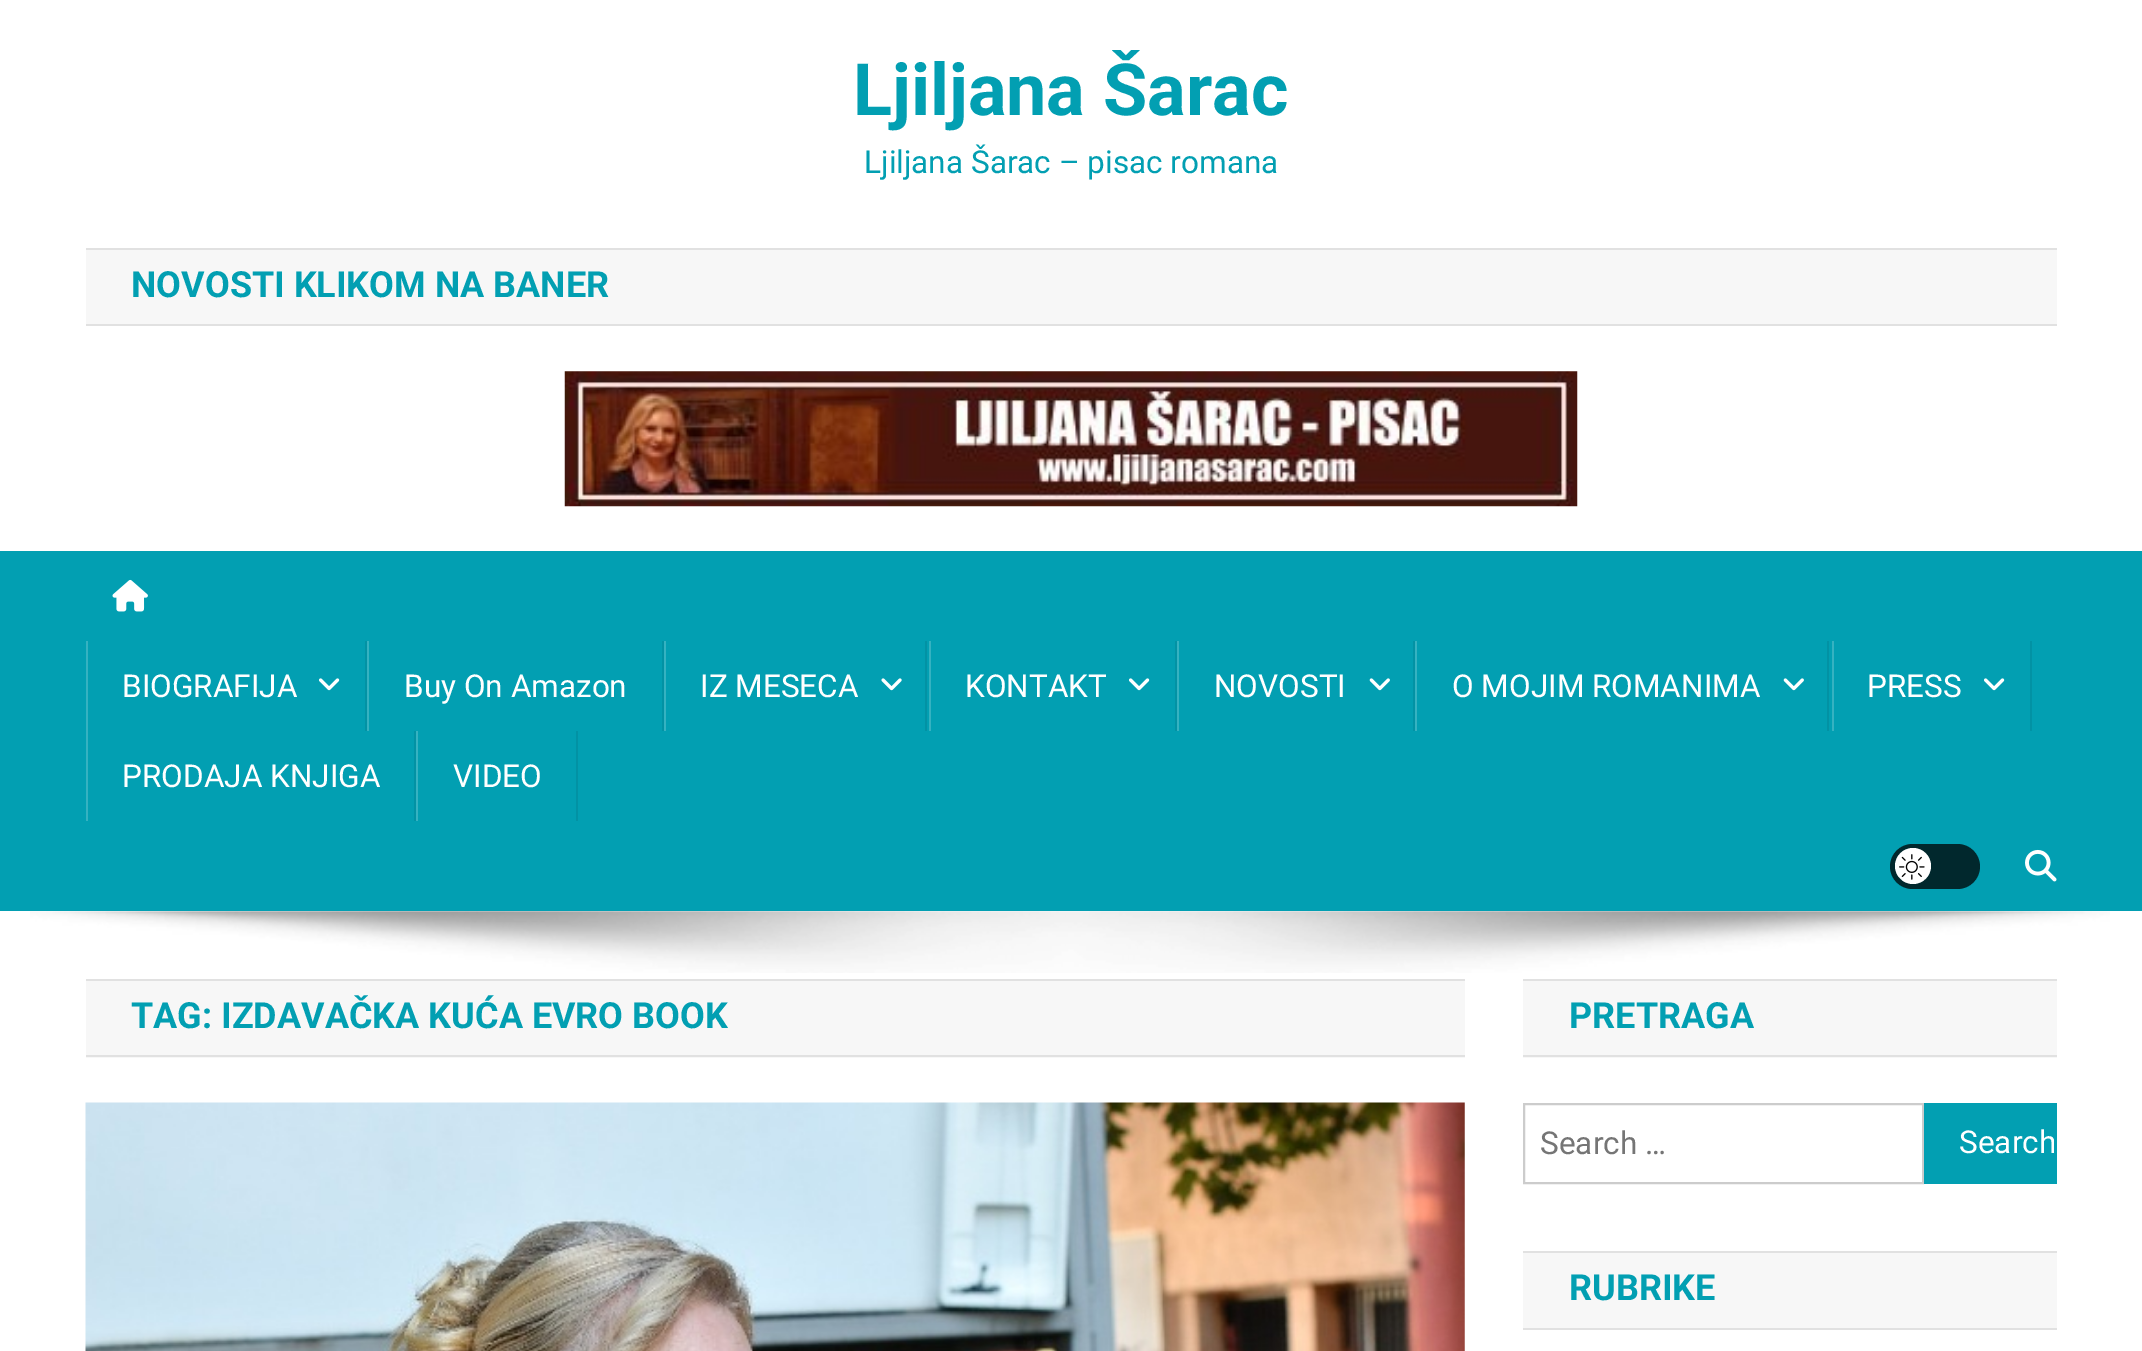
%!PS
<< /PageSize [2142 1351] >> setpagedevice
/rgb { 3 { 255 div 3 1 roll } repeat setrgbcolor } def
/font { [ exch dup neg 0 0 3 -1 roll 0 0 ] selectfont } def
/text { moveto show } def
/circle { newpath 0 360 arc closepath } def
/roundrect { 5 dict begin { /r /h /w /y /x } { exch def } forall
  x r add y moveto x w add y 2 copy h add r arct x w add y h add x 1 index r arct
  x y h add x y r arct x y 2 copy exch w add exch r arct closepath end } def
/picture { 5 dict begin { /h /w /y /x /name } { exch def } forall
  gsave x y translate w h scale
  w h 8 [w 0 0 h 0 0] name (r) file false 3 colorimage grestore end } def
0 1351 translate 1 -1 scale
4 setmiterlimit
255 255 255 rgb
0 0 2142 1351 rectfill
247 247 247 rgb
86 250 1971 74 rectfill
225 225 225 rgb
86 248 1971 2 rectfill
86 324 1971 2 rectfill
(img_01.rgb) 564 371 1014 136 picture
2 159 178 rgb
0 551 2142 360 rectfill
(img_02.rgb) 112 579 36 33 picture
2 146 164 rgb
365 641 2 90 rectfill
53 178 193 rgb
86 641 2 180 rectfill
(img_03.rgb) 319 678 21 13 picture
2 146 164 rgb
662 641 2 90 rectfill
53 178 193 rgb
367 641 2 90 rectfill
2 146 164 rgb
925 641 2 90 rectfill
53 178 193 rgb
664 641 2 90 rectfill
(img_04.rgb) 881 678 21 13 picture
2 146 164 rgb
1175 641 2 90 rectfill
53 178 193 rgb
929 641 2 90 rectfill
(img_03.rgb) 1129 678 21 13 picture
2 146 164 rgb
1413 641 2 90 rectfill
53 178 193 rgb
1177 641 2 90 rectfill
(img_05.rgb) 1369 678 21 13 picture
2 146 164 rgb
1827 641 2 90 rectfill
53 178 193 rgb
1415 641 2 90 rectfill
(img_05.rgb) 1783 678 21 13 picture
2 146 164 rgb
2030 641 2 90 rectfill
53 178 193 rgb
1832 641 2 90 rectfill
(img_03.rgb) 1984 678 21 13 picture
2 146 164 rgb
414 731 2 90 rectfill
576 731 2 90 rectfill
53 178 193 rgb
416 731 2 90 rectfill
1 40 45 rgb
1890 844 90 45 22.5 roundrect fill
255 255 255 rgb
1913 866 18 circle fill
(img_06.rgb) 1899 854 26 26 picture
(img_07.rgb) 2025 849 32 33 picture
(img_08.rgb) 30 911 2080 62 picture
247 247 247 rgb
86 981 1379 77 rectfill
225 225 225 rgb
86 979 1379 2 rectfill
86 1055 1379 2 rectfill
(img_09.rgb) 85 1102 1380 249 picture
247 247 247 rgb
1523 981 534 77 rectfill
225 225 225 rgb
1523 979 534 2 rectfill
1523 1055 534 2 rectfill
204 204 204 rgb
2 setlinewidth
1524 1104 399 79 rectstroke
2 159 178 rgb
1924 1103 133 81 rectfill
247 247 247 rgb
1523 1253 534 75 rectfill
225 225 225 rgb
1523 1251 534 2 rectfill
1523 1328 534 2 rectfill
/Roboto-Bold 72 font
2 159 178 rgb
(Ljiljana Šarac) 853 115 text
/Roboto-Regular 31.5 font
(Ljiljana Šarac – pisac romana) 864 173 text
/Roboto-Bold 36 font
(NOVOSTI KLIKOM NA BANER) 131 297 text
/Roboto-Regular 31.5 font
255 255 255 rgb
(BIOGRAFIJA) 122 697 text
(Buy On Amazon) 404 697 text
(IZ MESECA) 700 697 text
(KONTAKT) 965 697 text
(NOVOSTI) 1214 697 text
(O MOJIM ROMANIMA) 1452 697 text
(PRESS) 1867 697 text
(PRODAJA KNJIGA) 122 787 text
(VIDEO) 453 787 text
/Roboto-Bold 36 font
2 159 178 rgb
(TAG: IZDAVAČKA KUĆA EVRO BOOK) 131 1028 text
(PRETRAGA) 1569 1028 text
/Roboto-Regular 31.5 font
117 117 117 rgb
(Search …) 1540 1154 text
gsave
1926 1105 128 76 rectclip
255 255 255 rgb
(Search) 1959 1153 text
grestore
/Roboto-Bold 36 font
2 159 178 rgb
(RUBRIKE) 1569 1300 text
showpage
